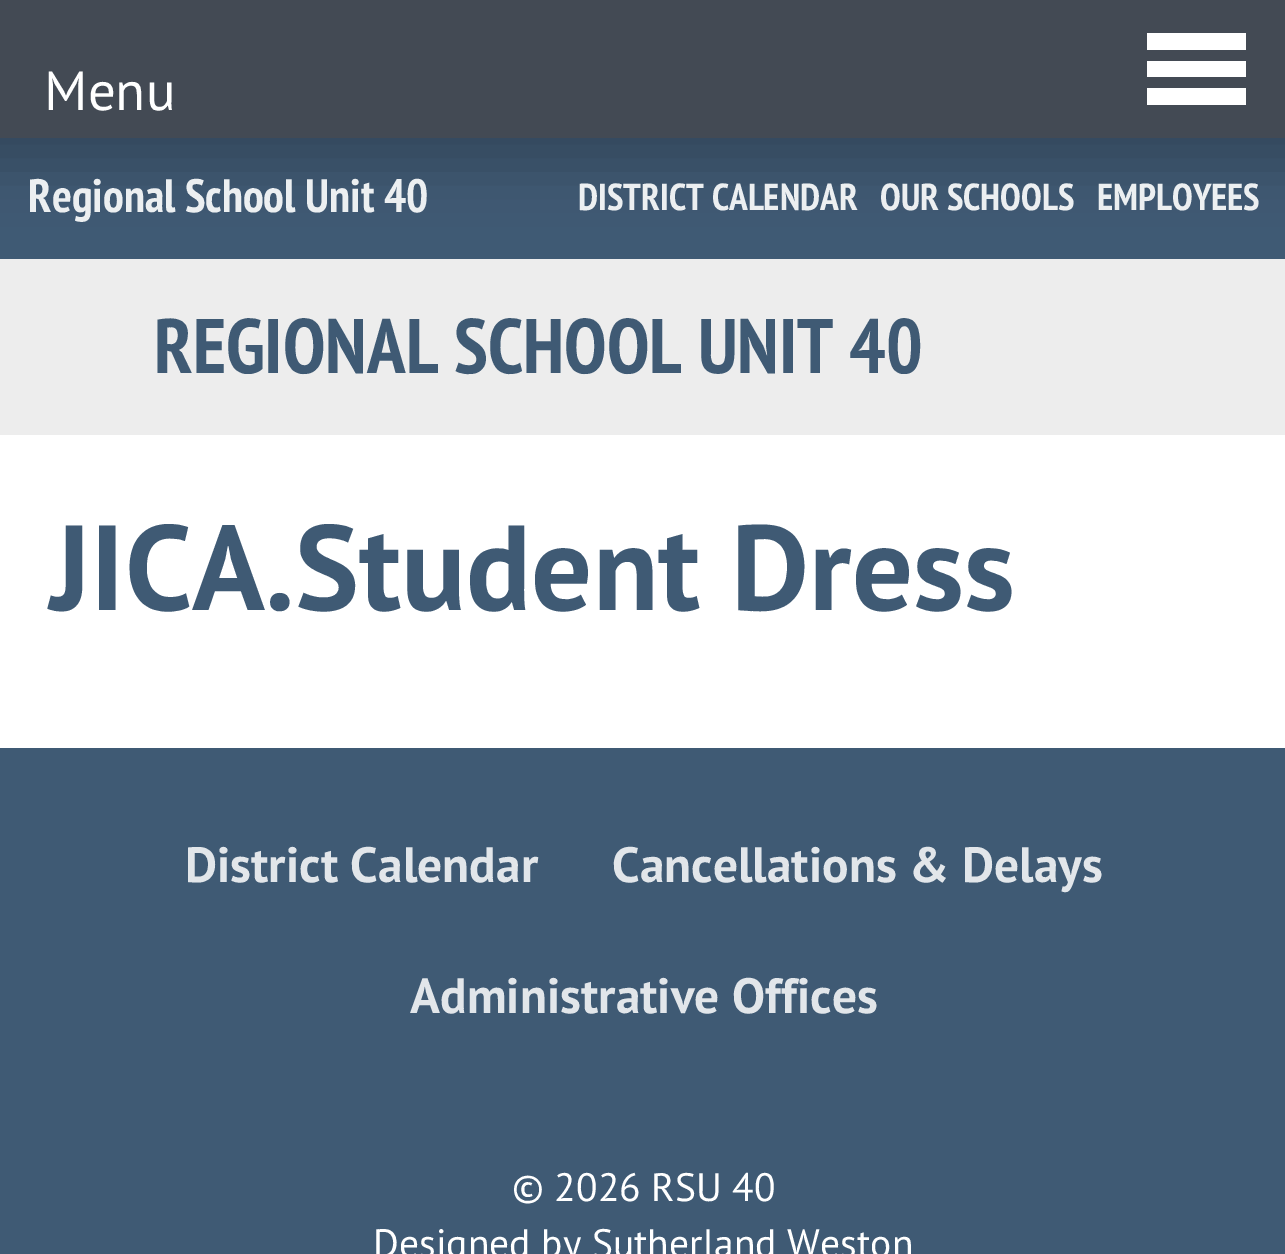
%!PS
<< /PageSize [1285 1254] /PageUsesTransparency true >> setpagedevice
/rgb { 3 { 255 div 3 1 roll } repeat setrgbcolor } def
/font { [ exch dup neg 0 0 3 -1 roll 0 0 ] selectfont } def
/text { moveto show } def
/alpha { dup .setfillconstantalpha .setstrokeconstantalpha } def
/roundrect { 5 dict begin { /r /h /w /y /x } { exch def } forall
  x r add y moveto x w add y 2 copy h add r arct x w add y h add x 1 index r arct
  x y h add x y r arct x y 2 copy exch w add exch r arct closepath end } def
/shadow { 12 dict begin { /a /b /q /h /w /y /x } { exch def } forall gsave /was 0 def
  9 -2 -9 { dup b mul 4 div /e exch def 1 sub .425 mul 2.718 exch exp 1 add a .99 .min exch div /now exch def
    1 1 now sub 1 was sub div sub alpha /was now def
    w h .min e 2 mul add 0 gt { x e sub y e sub w e 2 mul add h e 2 mul add
      q e add b .6 mul add w h .min 2 div e add .min 0 .max roundrect fill } if } for grestore end } def
0 .pushpdf14devicefilter
0 1254 translate 1 -1 scale
4 setmiterlimit
255 255 255 rgb
0 0 1285 1254 rectfill
237 237 237 rgb
0 259 1285 176 rectfill
63 90 116 rgb
0 138 1285 121 rectfill
0 0 0 rgb
-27 -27 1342 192 0 27.5 0.2 shadow
67 74 84 rgb
0 0 1285 138 rectfill
255 255 255 rgb
1147 61 99 16 rectfill
1147 33 99 17 rectfill
1147 88 99 17 rectfill
63 90 116 rgb
0 748 1285 506 rectfill
/PTSans-Regular 55 font
255 255 255 rgb
(Menu) 44 110 text
/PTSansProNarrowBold-Bold 77 font
63 90 116 rgb
(REGIONAL SCHOOL UNIT 40) 154 373 text
/PTSansProNarrowBold-Bold 46.75 font
236 239 241 rgb
(Regional School Unit 40) 28 212 text
/PTSansProNarrowBold-Bold 37.5 font
(DISTRICT CALENDAR) 578 210 text
(OUR SCHOOLS) 880 210 text
(EMPLOYEES) 1097 210 text
/PTSans-Bold 120.75 font
63 90 116 rgb
(JICA.Student Dress) 50 610 text
/PTSans-Bold 49.5 font
226 230 234 rgb
(District Calendar) 185 882 text
(Cancellations & Delays) 612 882 text
(Administrative Offices) 410 1013 text
/PTSans-Regular 39.6 font
255 255 255 rgb
(© 2026 RSU 40) 512 1201 text
(Designed by Sutherland Weston) 373 1257 text
.poppdf14devicefilter showpage
